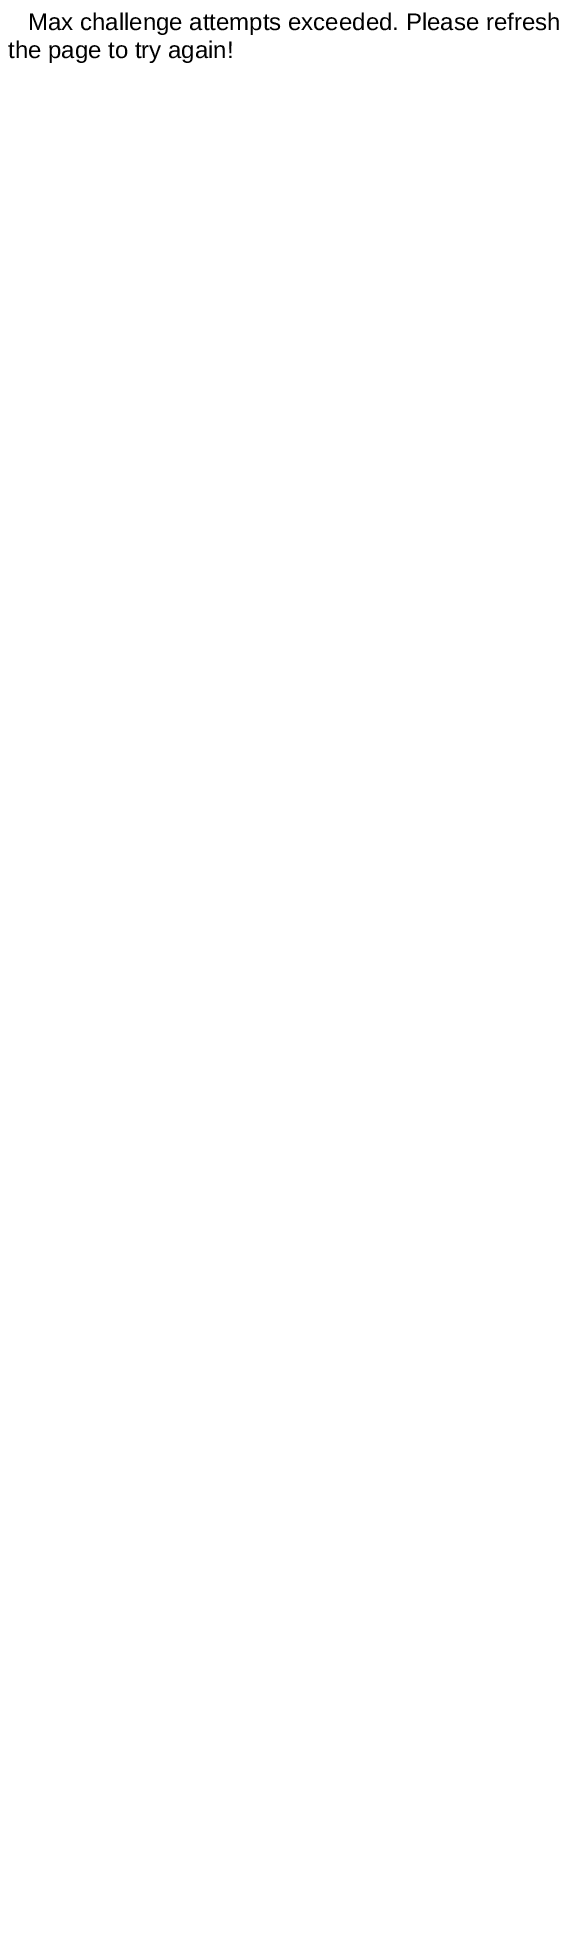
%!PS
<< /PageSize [576 1934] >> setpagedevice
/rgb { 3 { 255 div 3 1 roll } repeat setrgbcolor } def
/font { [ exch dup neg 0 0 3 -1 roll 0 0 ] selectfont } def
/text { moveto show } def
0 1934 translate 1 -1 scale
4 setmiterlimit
255 255 255 rgb
0 0 576 1934 rectfill
/LiberationSans-Regular 24 font
0 0 0 rgb
(Max challenge attempts exceeded. Please refresh) 28 30 text
(the page to try again!) 8 58 text
showpage
